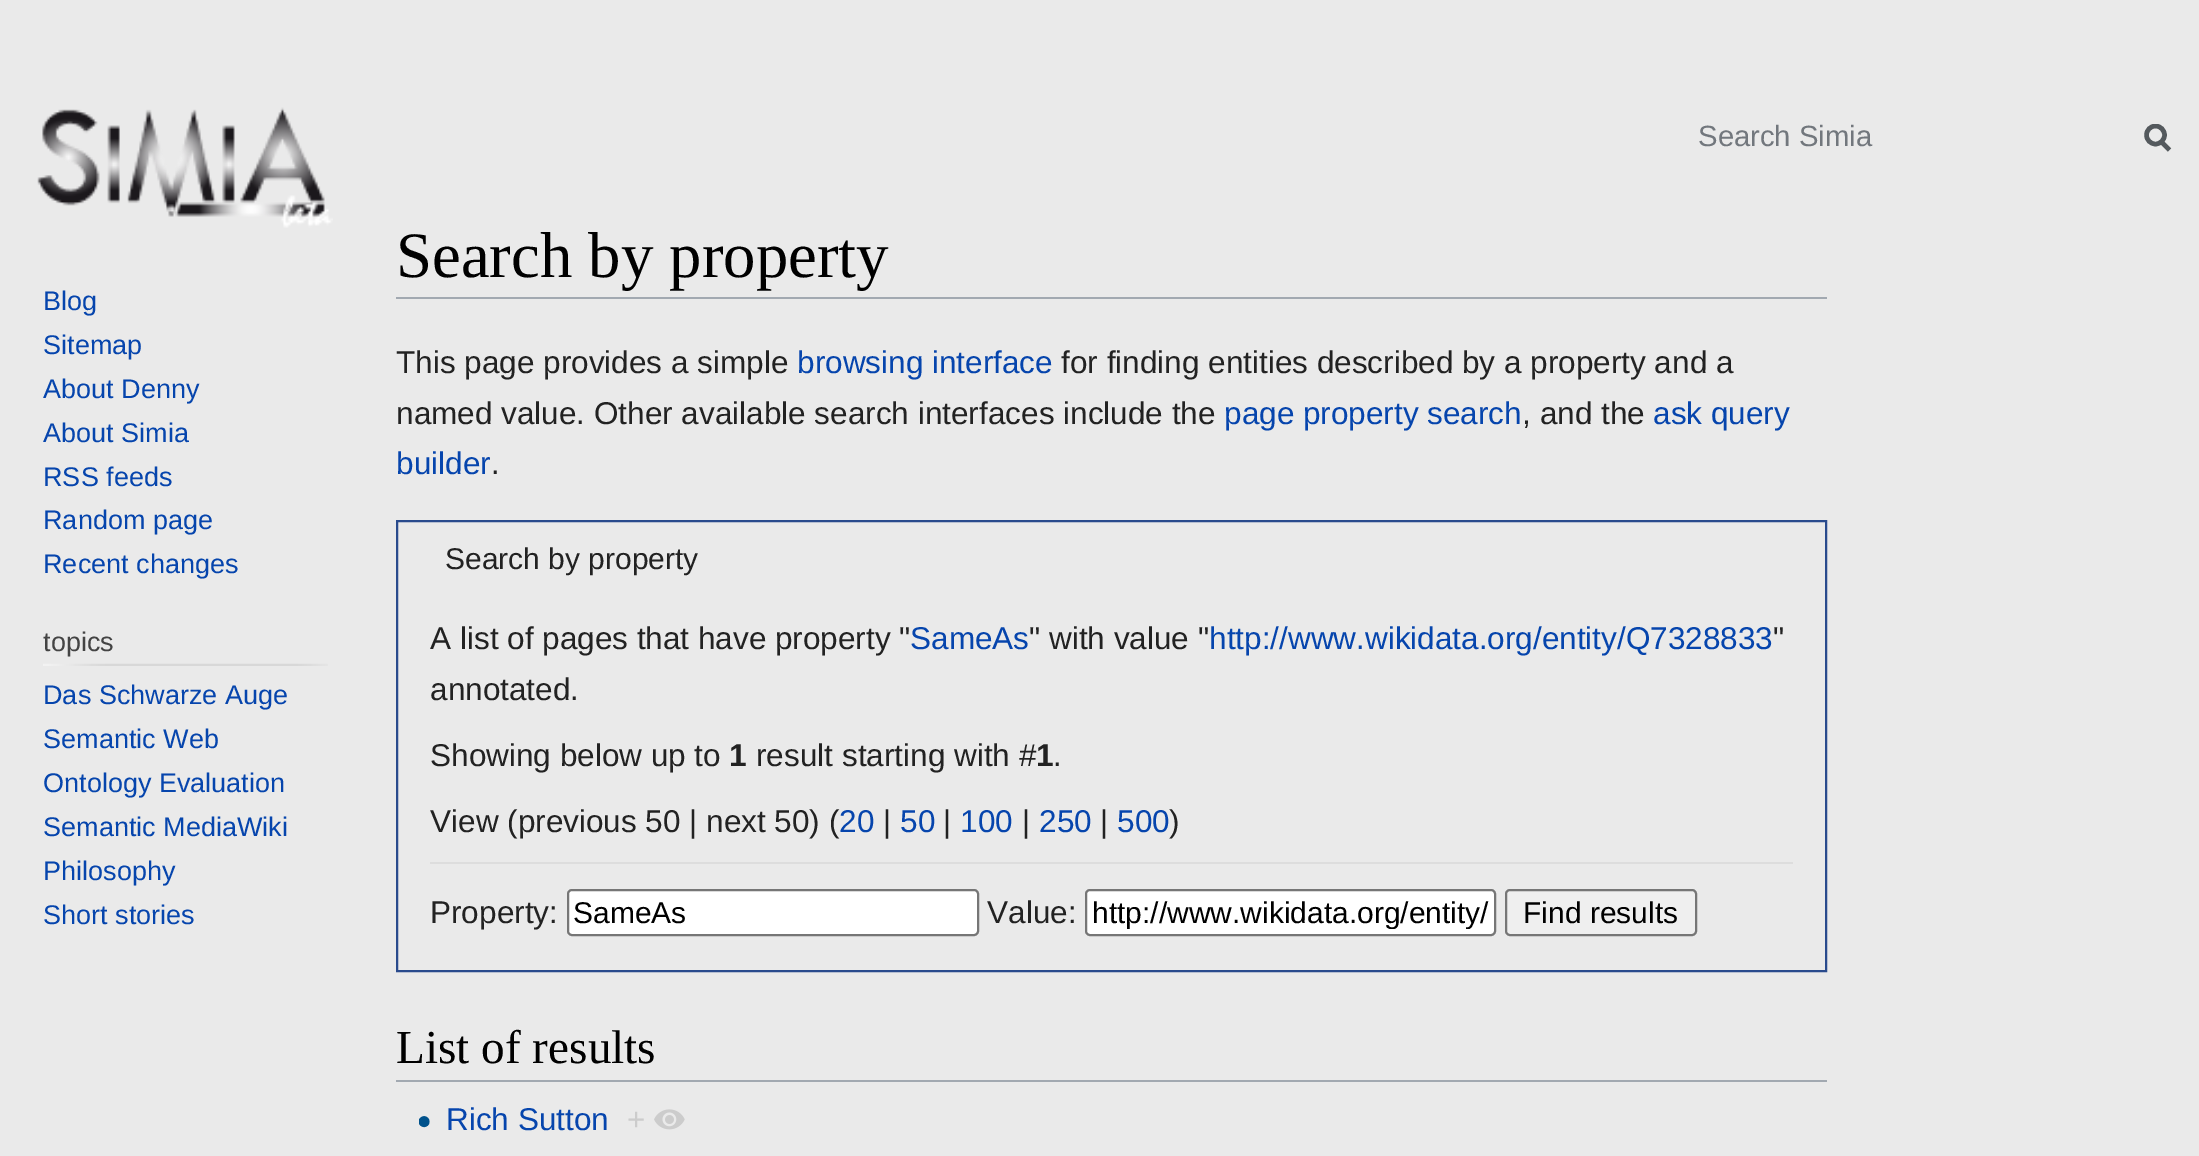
%!PS
<< /PageSize [2199 1156] >> setpagedevice
/rgb { 3 { 255 div 3 1 roll } repeat setrgbcolor } def
/font { [ exch dup neg 0 0 3 -1 roll 0 0 ] selectfont } def
/text { moveto show } def
/circle { newpath 0 360 arc closepath } def
/roundrect { 5 dict begin { /r /h /w /y /x } { exch def } forall
  x r add y moveto x w add y 2 copy h add r arct x w add y h add x 1 index r arct
  x y h add x y r arct x y 2 copy exch w add exch r arct closepath end } def
/picture { 5 dict begin { /h /w /y /x /name } { exch def } forall
  gsave x y translate w h scale
  w h 8 [w 0 0 h 0 0] name (r) file false 3 colorimage grestore end } def
0 1156 translate 1 -1 scale
4 setmiterlimit
234 234 234 rgb
0 0 2199 1156 rectfill
84 89 93 rgb
4.5 setlinewidth
2169.5 150 moveto -9 -9 rlineto stroke
gsave
2144 124 27 29 rectclip
2155.5 135 9 circle stroke
grestore
(img_01.rgb) 37 107 296 121 picture
(img_02.rgb) 43 663 285 3 picture
162 169 177 rgb
396 297 1431 2 rectfill
42 75 141 rgb
2 setlinewidth
397 521 1429 450 rectstroke
221 221 221 rgb
430 862 1363 2 rectfill
255 255 255 rgb
568 890 410 45 4 roundrect gsave fill grestore
118 118 118 rgb
stroke
255 255 255 rgb
1086 890 409 45 4 roundrect gsave fill grestore
118 118 118 rgb
stroke
239 239 239 rgb
1506 890 190 45 4 roundrect gsave fill grestore
118 118 118 rgb
stroke
162 169 177 rgb
396 1080 1431 2 rectfill
(img_03.rgb) 419 1116 11 12 picture
(img_04.rgb) 654 1109 31 21 picture
/LiberationSans-Regular 29.25 font
114 119 125 rgb
(Search Simia) 1698 146 text
/LiberationSans-Regular 27 font
6 69 173 rgb
(Blog) 43 310 text
(Sitemap) 43 354 text
(About Denny) 43 398 text
(About Simia) 43 442 text
(RSS feeds) 43 486 text
(Random page) 43 529 text
(Recent changes) 43 573 text
68 68 68 rgb
(topics) 43 651 text
6 69 173 rgb
(Das Schwarze Auge) 43 704 text
(Semantic Web) 43 748 text
(Ontology Evaluation) 43 792 text
(Semantic MediaWiki) 43 836 text
(Philosophy) 43 880 text
(Short stories) 43 924 text
/LiberationSerif-Regular 64.75 font
0 0 0 rgb
(Search by property) 396 277 text
/LiberationSans-Regular 31.5 font
34 34 34 rgb
(This page provides a simple) 396 373 text
6 69 173 rgb
(browsing interface) 797 373 text
34 34 34 rgb
(for finding entities described by a property and a) 1061 373 text
(named value. Other available search interfaces include the) 396 424 text
6 69 173 rgb
(page property search) 1224 424 text
34 34 34 rgb
(, and the) 1522 424 text
6 69 173 rgb
(ask query) 1653 424 text
(builder) 396 474 text
34 34 34 rgb
(.) 491 474 text
/LiberationSans-Regular 30 font
(Search by property) 445 569 text
/LiberationSans-Regular 31.5 font
(A list of pages that have property ") 430 649 text
6 69 173 rgb
(SameAs) 910 649 text
34 34 34 rgb
(" with value ") 1029 649 text
6 69 173 rgb
(http://www.wikidata.org/entity/Q7328833) 1209 649 text
34 34 34 rgb
(") 1773 649 text
(annotated.) 430 700 text
(Showing below up to) 430 766 text
/LiberationSans-Bold 31.5 font
(1) 729 766 text
/LiberationSans-Regular 31.5 font
(result starting with #) 756 766 text
/LiberationSans-Bold 31.5 font
(1) 1036 766 text
/LiberationSans-Regular 31.5 font
(.) 1053 766 text
(View \(previous 50 | next 50\) \() 430 832 text
6 69 173 rgb
(20) 839 832 text
34 34 34 rgb
(|) 883 832 text
6 69 173 rgb
(50) 900 832 text
34 34 34 rgb
(|) 943 832 text
6 69 173 rgb
(100) 960 832 text
34 34 34 rgb
(|) 1022 832 text
6 69 173 rgb
(250) 1039 832 text
34 34 34 rgb
(|) 1100 832 text
6 69 173 rgb
(500) 1117 832 text
34 34 34 rgb
(\)) 1169 832 text
(Property:) 430 923 text
/LiberationSans-Regular 30 font
0 0 0 rgb
(SameAs) 573 923 text
/LiberationSans-Regular 31.5 font
34 34 34 rgb
(Value:) 987 923 text
gsave
1091 896 399 33 rectclip
/LiberationSans-Regular 30 font
0 0 0 rgb
(http://www.wikidata.org/entity/) 1092 923 text
grestore
/LiberationSans-Regular 30 font
0 0 0 rgb
(Find results) 1523 923 text
/LiberationSerif-Regular 47.25 font
(List of results) 396 1063 text
/LiberationSans-Regular 31.5 font
6 69 173 rgb
(Rich Sutton) 446 1130 text
204 204 204 rgb
(+) 627 1130 text
showpage
